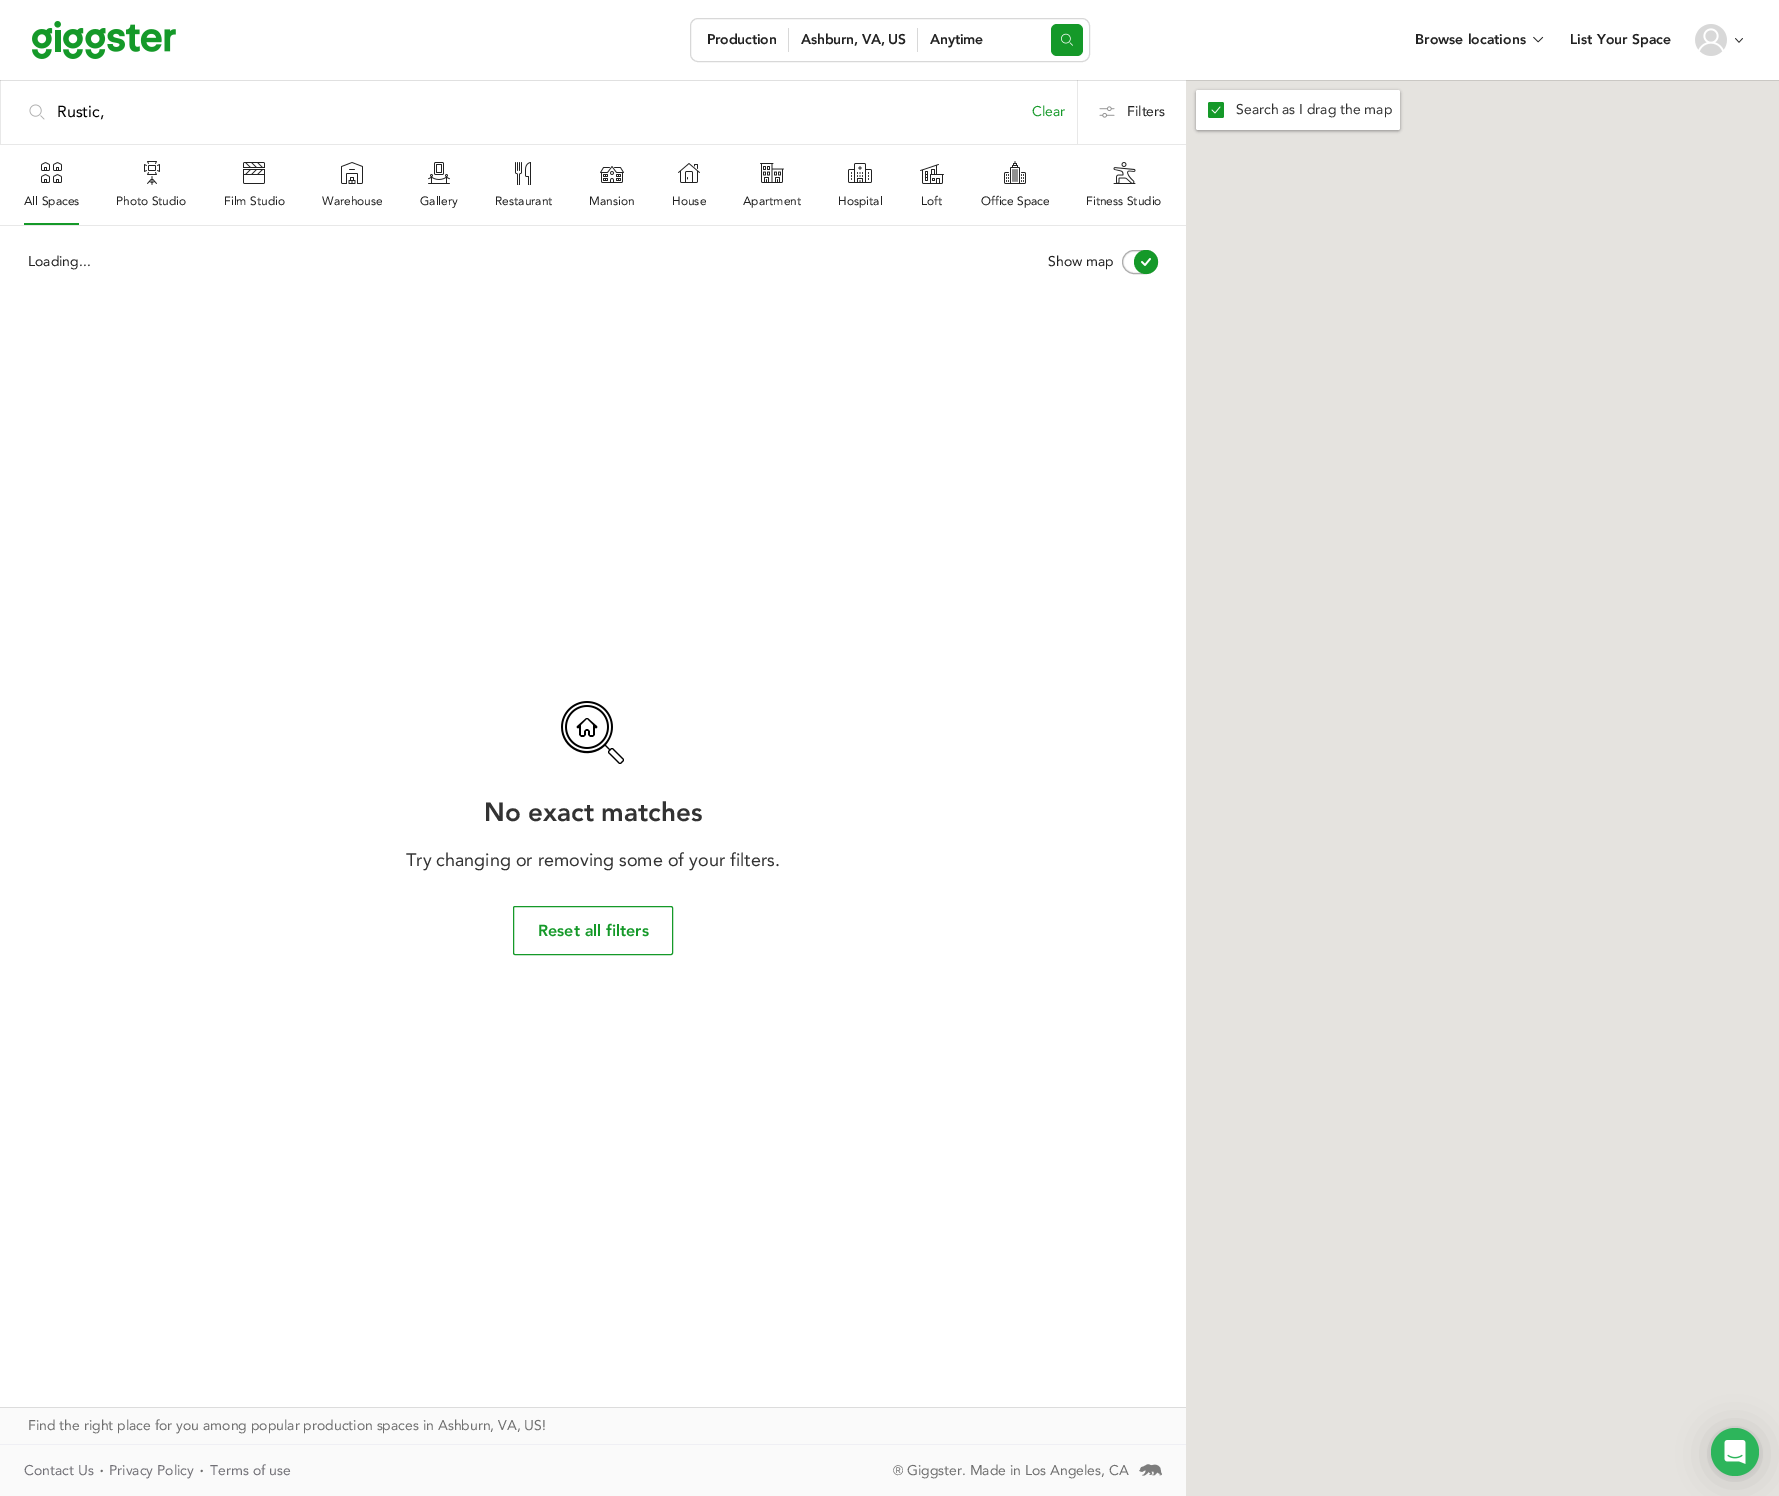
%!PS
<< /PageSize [1779 1496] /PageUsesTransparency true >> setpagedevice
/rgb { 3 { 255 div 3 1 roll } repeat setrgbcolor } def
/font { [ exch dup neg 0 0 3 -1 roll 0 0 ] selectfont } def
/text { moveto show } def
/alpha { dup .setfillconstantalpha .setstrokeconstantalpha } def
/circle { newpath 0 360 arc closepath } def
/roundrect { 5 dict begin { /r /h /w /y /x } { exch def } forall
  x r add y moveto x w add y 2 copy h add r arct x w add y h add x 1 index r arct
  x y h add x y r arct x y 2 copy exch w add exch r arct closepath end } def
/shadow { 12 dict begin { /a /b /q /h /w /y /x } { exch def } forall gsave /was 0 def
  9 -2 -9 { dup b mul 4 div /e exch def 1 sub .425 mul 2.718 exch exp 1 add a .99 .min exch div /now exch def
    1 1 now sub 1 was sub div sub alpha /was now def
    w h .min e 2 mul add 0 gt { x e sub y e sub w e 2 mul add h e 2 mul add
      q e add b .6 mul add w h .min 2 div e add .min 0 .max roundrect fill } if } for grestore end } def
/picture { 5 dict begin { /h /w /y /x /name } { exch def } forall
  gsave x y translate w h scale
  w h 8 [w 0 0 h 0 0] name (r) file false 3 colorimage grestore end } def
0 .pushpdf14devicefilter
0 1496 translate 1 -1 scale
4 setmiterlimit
255 255 255 rgb
0 0 1779 1496 rectfill
224 224 224 rgb
0 80 1186 1 rectfill
(img_01.rgb) 32 21 144 38 picture
216 216 216 rgb
690.5 18.5 399 43 7.5 roundrect stroke
788 28 1 24 rectfill
917 28 1 24 rectfill
21 153 41 rgb
1051 24 32 32 6 roundrect fill
(img_02.rgb) 1061 33 12 13 picture
(img_03.rgb) 1533 36 11 7 picture
(img_04.rgb) 1695 24 32 32 picture
(img_05.rgb) 1735 38 8 5 picture
232 232 232 rgb
0 144 1186 1 rectfill
0 80 1 64 rectfill
204 204 204 rgb
0 80 1 1 rectfill
(img_06.rgb) 29 104 16 16 picture
232 232 232 rgb
1077 80 1 64 rectfill
204 204 204 rgb
1077 80 1 1 rectfill
(img_07.rgb) 1099 106 16 12 picture
232 232 232 rgb
0 225 1186 1 rectfill
21 153 41 rgb
24 223 55 2 rectfill
(img_08.rgb) 41 162 21 21 picture
(img_09.rgb) 144 161 16 24 picture
(img_10.rgb) 243 162 22 22 picture
(img_11.rgb) 341 162 22 22 picture
(img_12.rgb) 428 162 22 22 picture
(img_13.rgb) 515 162 16 23 picture
(img_14.rgb) 600 166 24 17 picture
(img_15.rgb) 678 163 22 20 picture
(img_16.rgb) 760 163 24 20 picture
(img_17.rgb) 848 163 24 20 picture
(img_18.rgb) 920 164 24 20 picture
(img_19.rgb) 1004 161 22 23 picture
(img_20.rgb) 1113 162 23 22 picture
240 240 240 rgb
1123.5 251.5 33 21 10.5 roundrect stroke
173 173 173 rgb
1122.5 250.5 35 23 11.5 roundrect stroke
21 153 41 rgb
1146 262 12 circle fill
(img_21.rgb) 1141 258 10 8 picture
(img_22.rgb) 561 701 63 63 picture
513.5 906.5 159 48 1.5 roundrect stroke
250 250 250 rgb
0 1408 1186 36 rectfill
220 220 220 rgb
0 1407 1186 1 rectfill
239 239 244 rgb
0 1444 1186 1 rectfill
250 250 250 rgb
0 1445 1186 51 rectfill
(img_23.rgb) 1139 1464 23 12 picture
229 227 223 rgb
1186 81 593 1415 rectfill
202 200 196 rgb
1186 80 593 1 rectfill
0 0 0 rgb
1196 91 204 40 2 1.5 0.35 shadow
255 255 255 rgb
1196 90 204 40 2 roundrect fill
(img_24.rgb) 1208 102 16 16 picture
21 153 41 rgb
1208 102 16 16 2 roundrect fill
(img_25.rgb) 1211 106 10 8 picture
0 0 0 rgb
1711 1430 48 48 24 16 0.16 shadow
1711 1429 48 48 24 3 0.06 shadow
45 181 91 rgb
1735 1452 24 circle fill
(img_26.rgb) 1724 1440 22 24 picture
/Avenir-Black 14 font
34 34 34 rgb
707 44 moveto -0.25 0 (Production) ashow
801 44 moveto -0.25 0 (Ashburn, VA, US) ashow
930 44 moveto -0.25 0 (Anytime) ashow
(Browse locations) 1415 44 text
(List Your Space) 1570 44 text
/Avenir-Regular 16 font
0 0 0 rgb
(Rustic,) 57 117 text
/Avenir-Regular 14 font
21 153 41 rgb
(Clear) 1032 116 text
34 34 34 rgb
(Filters) 1127 116 text
/Avenir-Regular 12 font
(All Spaces) 24 205 text
(Photo Studio) 116 205 text
(Film Studio) 224 205 text
(Warehouse) 322 205 text
(Gallery) 420 205 text
(Restaurant) 495 205 text
(Mansion) 589 205 text
(House) 672 205 text
(Apartment) 743 205 text
(Hospital) 838 205 text
(Loft) 921 205 text
(Office Space) 981 205 text
(Fitness Studio) 1086 205 text
/Avenir-Regular 14 font
(Loading...) 28 266 text
(Show map) 1048 266 text
/Avenir-Black 26 font
51 51 51 rgb
(No exact matches) 484 821 text
/Avenir-Regular 18 font
(Try changing or removing some of your filters.) 406 866 text
/Avenir-Black 16 font
21 153 41 rgb
(Reset all filters) 538 936 text
/Avenir-Regular 14 font
111 111 111 rgb
(Find the right place for you among popular production spaces in Ashburn, VA, US!) 28 1430 text
113 112 118 rgb
(Contact Us) 24 1475 text
/Avenir-Regular 20 font
111 111 111 rgb
(.) 99 1472 text
/Avenir-Regular 14 font
113 112 118 rgb
(Privacy Policy) 109 1475 text
/Avenir-Regular 20 font
111 111 111 rgb
(.) 199 1472 text
/Avenir-Regular 14 font
113 112 118 rgb
(Terms of use) 210 1475 text
/LiberationSans-Regular 14 font
111 111 111 rgb
(®) 893 1475 text
/Avenir-Regular 14 font
(Giggster. Made in Los Angeles, CA) 907 1475 text
51 51 51 rgb
(Search as I drag the map) 1236 114 text
.poppdf14devicefilter showpage
